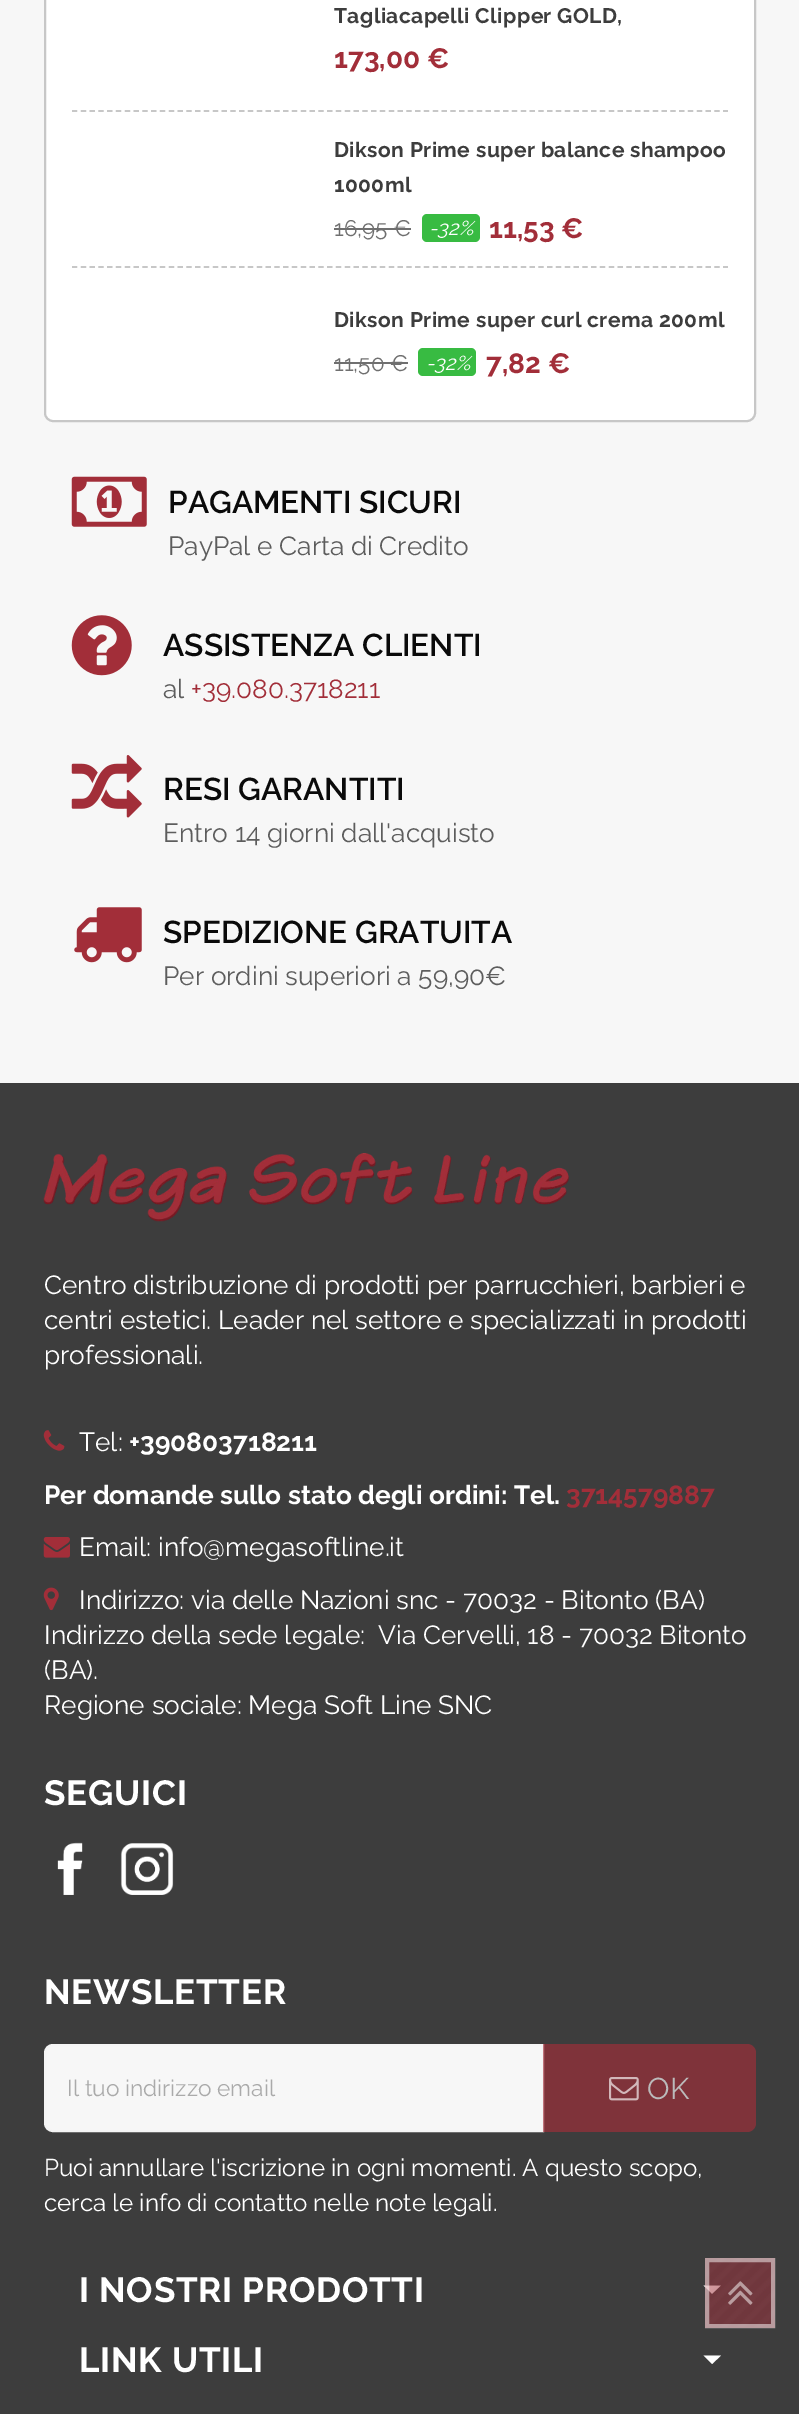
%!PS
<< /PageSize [799 2414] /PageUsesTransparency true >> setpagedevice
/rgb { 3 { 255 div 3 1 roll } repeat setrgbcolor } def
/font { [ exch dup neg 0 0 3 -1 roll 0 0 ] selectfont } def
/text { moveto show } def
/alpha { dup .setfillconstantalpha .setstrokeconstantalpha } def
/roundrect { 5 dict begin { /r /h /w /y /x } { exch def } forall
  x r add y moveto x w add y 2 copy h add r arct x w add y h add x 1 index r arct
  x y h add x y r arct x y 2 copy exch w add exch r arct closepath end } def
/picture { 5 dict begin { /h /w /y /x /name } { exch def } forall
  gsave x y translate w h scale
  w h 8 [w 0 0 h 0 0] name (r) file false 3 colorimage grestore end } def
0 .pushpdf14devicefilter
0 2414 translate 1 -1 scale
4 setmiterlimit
247 247 247 rgb
0 0 799 2414 rectfill
255 255 255 rgb
45 -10 710 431 8 roundrect gsave fill grestore
199 199 199 rgb
2 setlinewidth
stroke
1.8 setlinewidth
[5.25 3.55] 0 setdash
72 111 moveto 656 0 rlineto stroke
111 111 111 rgb
334 228 77 2 rectfill
56 187 66 rgb
422 214 58 28 5 roundrect fill
199 199 199 rgb
72 267 moveto 656 0 rlineto stroke
111 111 111 rgb
334 362 74 2 rectfill
56 187 66 rgb
418 348 58 28 5 roundrect fill
(img_01.rgb) 71 476 76 51 picture
(img_02.rgb) 71 615 61 61 picture
(img_03.rgb) 71 755 71 63 picture
(img_04.rgb) 74 907 68 56 picture
61 61 61 rgb
0 1083 799 1331 rectfill
(img_05.rgb) 43 1153 526 69 picture
(img_06.rgb) 43 1430 22 21 picture
(img_07.rgb) 43 1537 27 21 picture
(img_08.rgb) 43 1587 16 24 picture
(img_09.rgb) 57 1842 26 53 picture
(img_10.rgb) 120 1843 54 52 picture
247 247 247 rgb
53 2045 moveto 490 0 rlineto 0 86 rlineto -490 0 rlineto -4.5 0 -8 -3.5 -8 -8 rcurveto 0 -70 rlineto 0 -4.5 3.5 -8 8 -8 rcurveto closepath gsave fill grestore
245 245 245 rgb
2 setlinewidth
[] 0 setdash
stroke
0.65 alpha
162 46 57 rgb
543 2044 moveto 204 0 rlineto 5 0 9 4 9 9 rcurveto 0 70 rlineto 0 5 -4 9 -9 9 rcurveto -204 0 rlineto closepath fill
1 alpha
(img_11.rgb) 609 2077 30 24 picture
255 255 255 rgb
703.5 2285.5 moveto 17.5 0 rlineto -9 8.5 rlineto closepath fill
703.5 2355.5 moveto 17.5 0 rlineto -9 8.5 rlineto closepath fill
0.5 alpha
162 46 57 rgb
705 2258 70 70 rectfill
1 alpha
(img_12.rgb) 706 2258 69 69 picture
0.5 alpha
255 255 255 rgb
4 setlinewidth
707 2260 66 66 rectstroke
1 alpha
(img_13.rgb) 728 2281 25 24 picture
/Raleway-Bold 21 font
61 61 61 rgb
334 23 moveto 0.4 0 (Tagliacapelli Clipper GOLD,) ashow
/Raleway-Bold 28 font
162 46 57 rgb
(173,00 €) 334 68 text
/Raleway-Bold 21 font
61 61 61 rgb
334 157 moveto 0.4 0 (Dikson Prime super balance shampoo) ashow
334 192 moveto 0.4 0 (1000ml) ashow
/Raleway-Regular 22.5 font
111 111 111 rgb
(16,95 €) 334 236 text
/Raleway-Italic 20 font
255 255 255 rgb
(-32%) 429 235 text
/Raleway-Bold 28 font
162 46 57 rgb
(11,53 €) 489 238 text
/Raleway-Bold 21 font
61 61 61 rgb
334 327 moveto 0.4 0 (Dikson Prime super curl crema 200ml) ashow
/Raleway-Regular 22.5 font
111 111 111 rgb
(11,50 €) 334 371 text
/Raleway-Italic 20 font
255 255 255 rgb
(-32%) 426 370 text
/Raleway-Bold 28 font
162 46 57 rgb
(7,82 €) 486 373 text
/Raleway-SemiBold 31.5 font
10 10 10 rgb
(PAGAMENTI SICURI) 168 513 text
/Raleway-Regular 26.25 font
93 93 93 rgb
(PayPal e Carta di Credito) 168 555 text
/Raleway-SemiBold 31.5 font
10 10 10 rgb
(ASSISTENZA CLIENTI) 163 656 text
/Raleway-Regular 26.25 font
93 93 93 rgb
(al) 163 698 text
162 46 57 rgb
(+39.080.3718211) 191 698 text
/Raleway-SemiBold 31.5 font
10 10 10 rgb
(RESI GARANTITI) 163 800 text
/Raleway-Regular 26.25 font
93 93 93 rgb
(Entro 14 giorni dall'acquisto) 163 842 text
/Raleway-SemiBold 31.5 font
10 10 10 rgb
(SPEDIZIONE GRATUITA) 163 943 text
/Raleway-Regular 26.25 font
93 93 93 rgb
(Per ordini superiori a 59,90€) 163 985 text
255 255 255 rgb
(Centro distribuzione di prodotti per parrucchieri, barbieri e) 44 1294 text
(centri estetici. Leader nel settore e specializzati in prodotti) 44 1329 text
(professionali.) 44 1364 text
(Tel:) 79 1451 text
/Raleway-Bold 26.25 font
(+390803718211) 129 1451 text
(Per domande sullo stato degli ordini: Tel.) 44 1504 text
162 46 57 rgb
(3714579887) 566 1504 text
/Raleway-Regular 26.25 font
255 255 255 rgb
(Email: info@megasoftline.it) 79 1556 text
(Indirizzo: via delle Nazioni snc - 70032 - Bitonto \(BA\)) 79 1609 text
(Indirizzo della sede legale:  Via Cervelli, 18 - 70032 Bitonto) 44 1644 text
(\(BA\).) 44 1679 text
(Regione sociale: Mega Soft Line SNC) 44 1714 text
/Raleway-Bold 35 font
44 1805 moveto 0.75 0 (SEGUICI) ashow
44 2004 moveto 0.75 0 (NEWSLETTER) ashow
/Raleway-Regular 22.75 font
170 170 170 rgb
(Il tuo indirizzo email) 67 2096 text
/Raleway-Regular 30 font
187 187 187 rgb
(OK) 647 2099 text
/Raleway-Regular 24.15 font
255 255 255 rgb
(Puoi annullare l'iscrizione in ogni momenti. A questo scopo,) 44 2176 text
(cerca le info di contatto nelle note legali.) 44 2211 text
/Raleway-Bold 35 font
79 2302 moveto 0.75 0 (I NOSTRI PRODOTTI) ashow
79 2372 moveto 0.75 0 (LINK UTILI) ashow
.poppdf14devicefilter showpage
